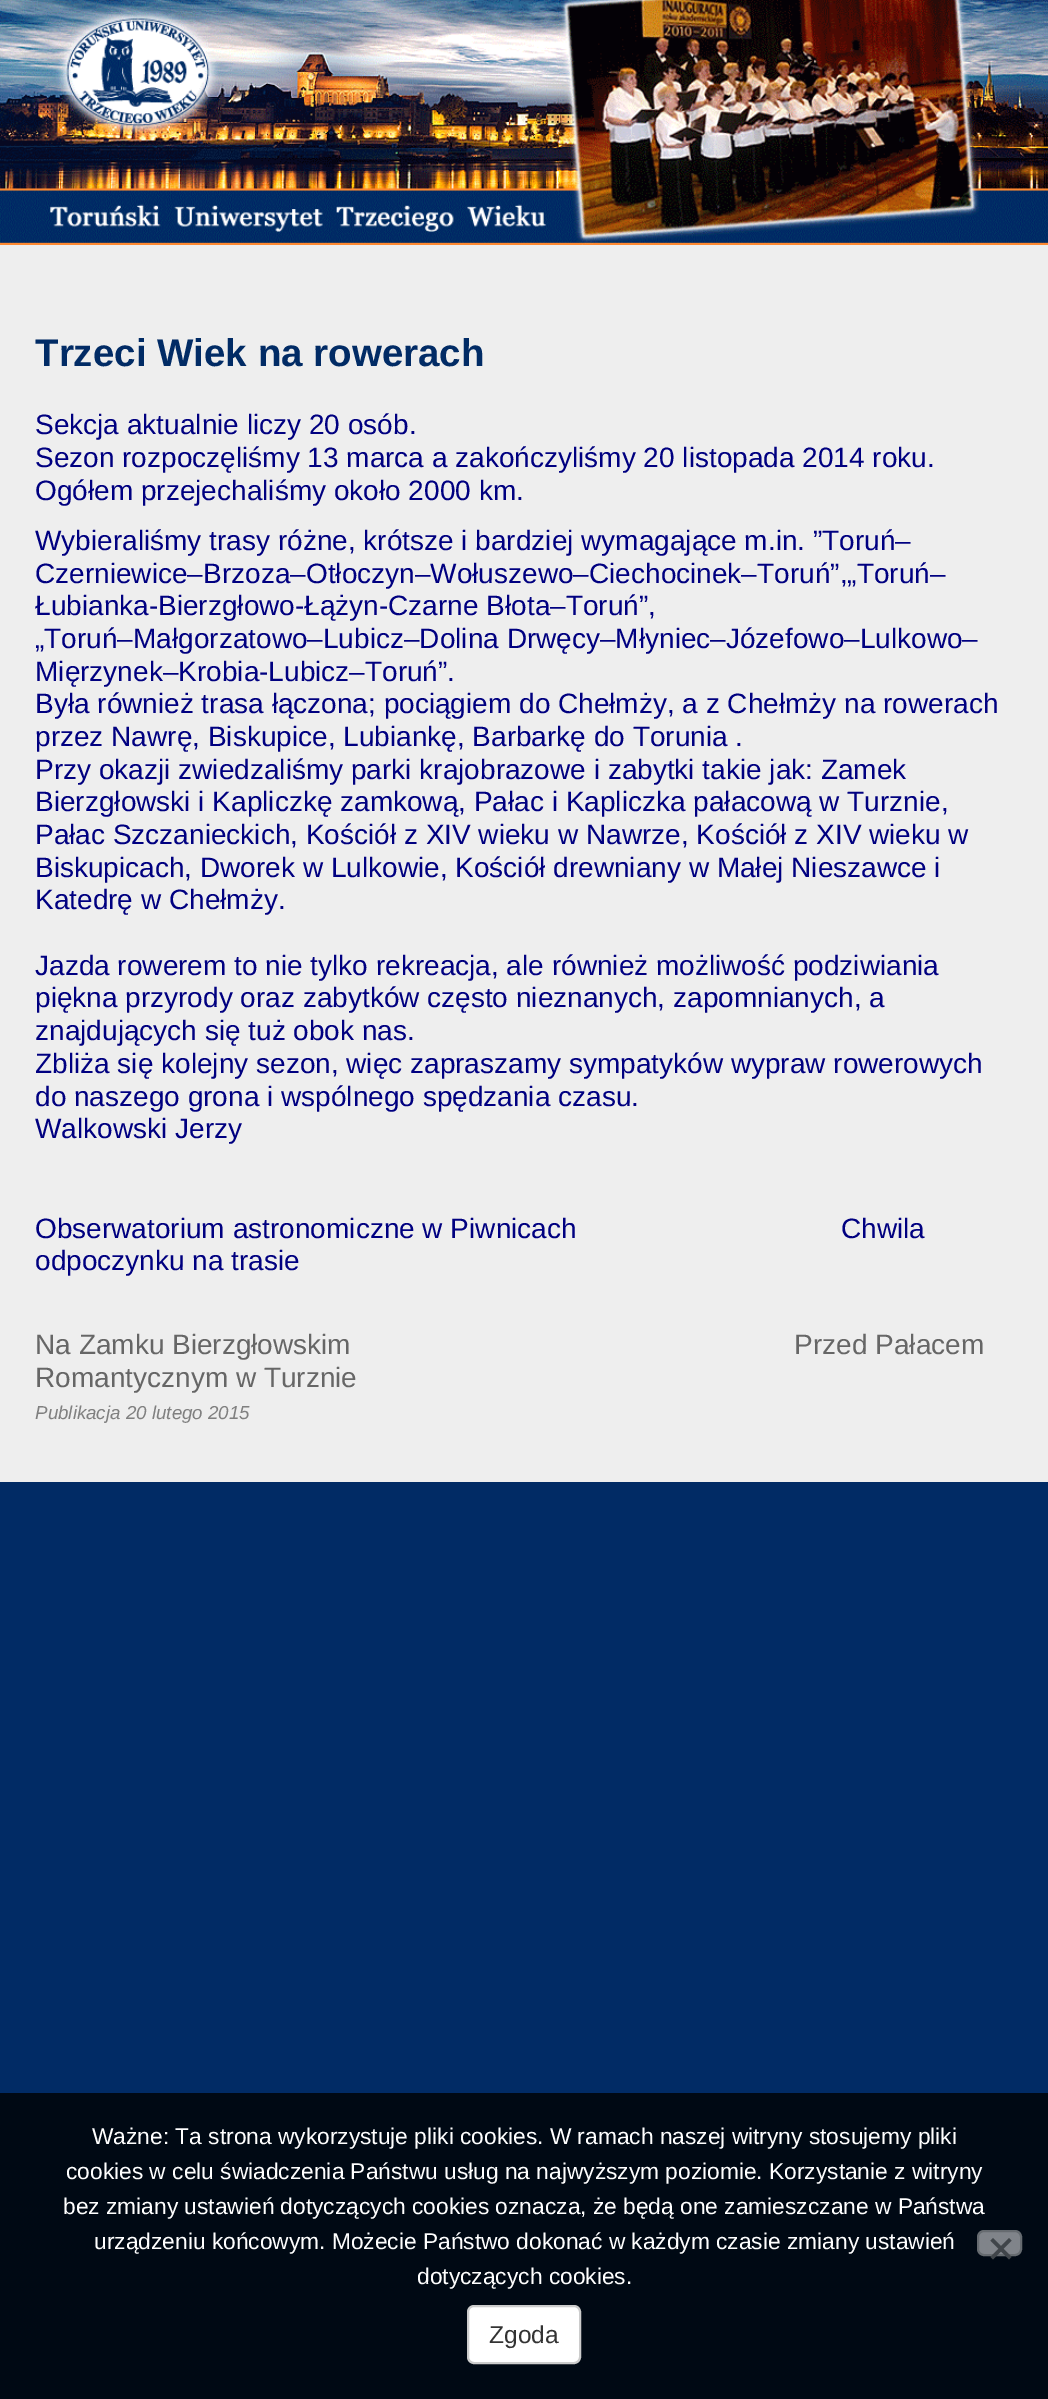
%!PS
<< /PageSize [1048 2399] >> setpagedevice
/rgb { 3 { 255 div 3 1 roll } repeat setrgbcolor } def
/font { [ exch dup neg 0 0 3 -1 roll 0 0 ] selectfont } def
/text { moveto show } def
/roundrect { 5 dict begin { /r /h /w /y /x } { exch def } forall
  x r add y moveto x w add y 2 copy h add r arct x w add y h add x 1 index r arct
  x y h add x y r arct x y 2 copy exch w add exch r arct closepath end } def
/picture { 5 dict begin { /h /w /y /x /name } { exch def } forall
  gsave x y translate w h scale
  w h 8 [w 0 0 h 0 0] name (r) file false 3 colorimage grestore end } def
0 2399 translate 1 -1 scale
4 setmiterlimit
1 43 101 rgb
0 0 1048 2399 rectfill
(img_01.rgb) 0 0 1048 245 picture
238 238 238 rgb
0 245 1048 1237 rectfill
0 9 20 rgb
0 2093 1048 306 rectfill
128 132 138 rgb
978 2231 43 24 6 roundrect gsave fill grestore
102 107 112 rgb
2 setlinewidth
stroke
64 69 74 rgb
1009 2238 moveto 2.5 2.5 rlineto -18.5 19 rlineto -2.5 -2.5 rlineto closepath fill
990.5 2240.5 moveto 2.5 -2.5 rlineto 18.5 19 rlineto -2.5 2.5 rlineto closepath fill
255 255 255 rgb
468 2306 112 57 6 roundrect gsave fill grestore
204 204 204 rgb
stroke
/LiberationSans-Bold 38.5 font
1 43 101 rgb
(Trzeci Wiek na rowerach) 35 366 text
/LiberationSans-Regular 28 font
0 0 128 rgb
(Sekcja aktualnie liczy 20 osób.) 35 434 text
(Sezon rozpoczęliśmy 13 marca a zakończyliśmy 20 listopada 2014 roku.) 35 467 text
(Ogółem przejechaliśmy około 2000 km.) 35 500 text
(Wybieraliśmy trasy różne, krótsze i bardziej wymagające m.in. ”Toruń–) 35 550 text
(Czerniewice–Brzoza–Otłoczyn–Wołuszewo–Ciechocinek–Toruń”,„Toruń–) 35 583 text
(Łubianka-Bierzgłowo-Łążyn-Czarne Błota–Toruń”,) 35 615 text
(„Toruń–Małgorzatowo–Lubicz–Dolina Drwęcy–Młyniec–Józefowo–Lulkowo–) 35 648 text
(Mięrzynek–Krobia-Lubicz–Toruń”.) 35 681 text
(Była również trasa łączona; pociągiem do Chełmży, a z Chełmży na rowerach) 35 713 text
(przez Nawrę, Biskupice, Lubiankę, Barbarkę do Torunia .) 35 746 text
(Przy okazji zwiedzaliśmy parki krajobrazowe i zabytki takie jak: Zamek) 35 779 text
(Bierzgłowski i Kapliczkę zamkową, Pałac i Kapliczka pałacową w Turznie,) 35 811 text
(Pałac Szczanieckich, Kościół z XIV wieku w Nawrze, Kościół z XIV wieku w) 35 844 text
(Biskupicach, Dworek w Lulkowie, Kościół drewniany w Małej Nieszawce i) 35 877 text
(Katedrę w Chełmży.) 35 909 text
(Jazda rowerem to nie tylko rekreacja, ale również możliwość podziwiania) 35 975 text
(piękna przyrody oraz zabytków często nieznanych, zapomnianych, a) 35 1007 text
(znajdujących się tuż obok nas.) 35 1040 text
(Zbliża się kolejny sezon, więc zapraszamy sympatyków wypraw rowerowych) 35 1073 text
(do naszego grona i wspólnego spędzania czasu.) 35 1106 text
(Walkowski Jerzy) 35 1138 text
(Obserwatorium astronomiczne w Piwnicach                                  Chwila) 35 1238 text
(odpoczynku na trasie) 35 1270 text
102 102 102 rgb
(Na Zamku Bierzgłowskim                                                         Przed Pałacem) 35 1354 text
(Romantycznym w Turznie) 35 1387 text
/LiberationSans-Italic 18.75 font
128 128 128 rgb
(Publikacja 20 lutego 2015) 35 1419 text
/LiberationSans-Regular 22.75 font
255 255 255 rgb
(Ważne: Ta strona wykorzystuje pliki cookies. W ramach naszej witryny stosujemy pliki) 92 2144 text
(cookies w celu świadczenia Państwu usług na najwyższym poziomie. Korzystanie z witryny) 66 2179 text
(bez zmiany ustawień dotyczących cookies oznacza, że będą one zamieszczane w Państwa) 63 2214 text
(urządzeniu końcowym. Możecie Państwo dokonać w każdym czasie zmiany ustawień) 94 2249 text
(dotyczących cookies.) 417 2284 text
/LiberationSans-Regular 24.5 font
51 51 51 rgb
(Zgoda) 489 2343 text
showpage
